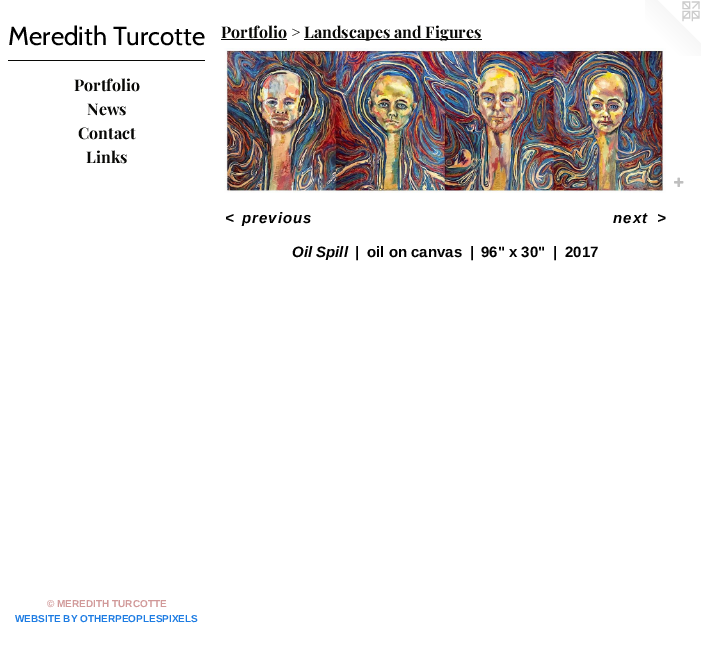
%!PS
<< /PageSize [701 649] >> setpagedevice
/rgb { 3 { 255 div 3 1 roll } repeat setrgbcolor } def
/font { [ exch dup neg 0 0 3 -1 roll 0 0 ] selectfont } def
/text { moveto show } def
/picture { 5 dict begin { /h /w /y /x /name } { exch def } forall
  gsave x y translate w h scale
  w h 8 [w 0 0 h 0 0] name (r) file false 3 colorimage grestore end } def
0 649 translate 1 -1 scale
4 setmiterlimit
255 255 255 rgb
0 0 701 649 rectfill
9 9 7 rgb
8 60 197 1 rectfill
221 39 66 1 rectfill
304 39 178 1 rectfill
(img_03.rgb) 645 0 56 56 picture
(img_01.rgb) 224 48 442 145 picture
(img_02.rgb) 674 177 10 10 picture
/Cabin-Regular 26 font
0 0 0 rgb
(Meredith Turcotte) 8 45 text
/PlayfairDisplay-Bold 16 font
9 9 7 rgb
(Portfolio) 74 91 text
(News) 87 115 text
(Contact) 78 139 text
(Links) 86 163 text
/LiberationSans-Bold 10 font
209 153 153 rgb
(© MEREDITH TURCOTTE) 47 607 text
29 124 227 rgb
(WEBSITE BY OTHERPEOPLESPIXELS) 15 622 text
/PlayfairDisplay-Bold 16 font
9 9 7 rgb
(Portfolio >) 221 38 text
(Landscapes and Figures) 304 38 text
/LiberationSans-BoldItalic 15 font
0 0 0 rgb
225 223 moveto 1 0 (<) ashow
242 223 moveto 1 0 (previous) ashow
613 223 moveto 1 0 (next) ashow
657 223 moveto 1 0 (>) ashow
(Oil Spill) 292 257 text
/LiberationSans-Bold 15 font
(|) 355 257 text
(oil on canvas) 367 257 text
(|) 470 257 text
(96" x 30") 481 257 text
(|) 553 257 text
(2017) 565 257 text
showpage
